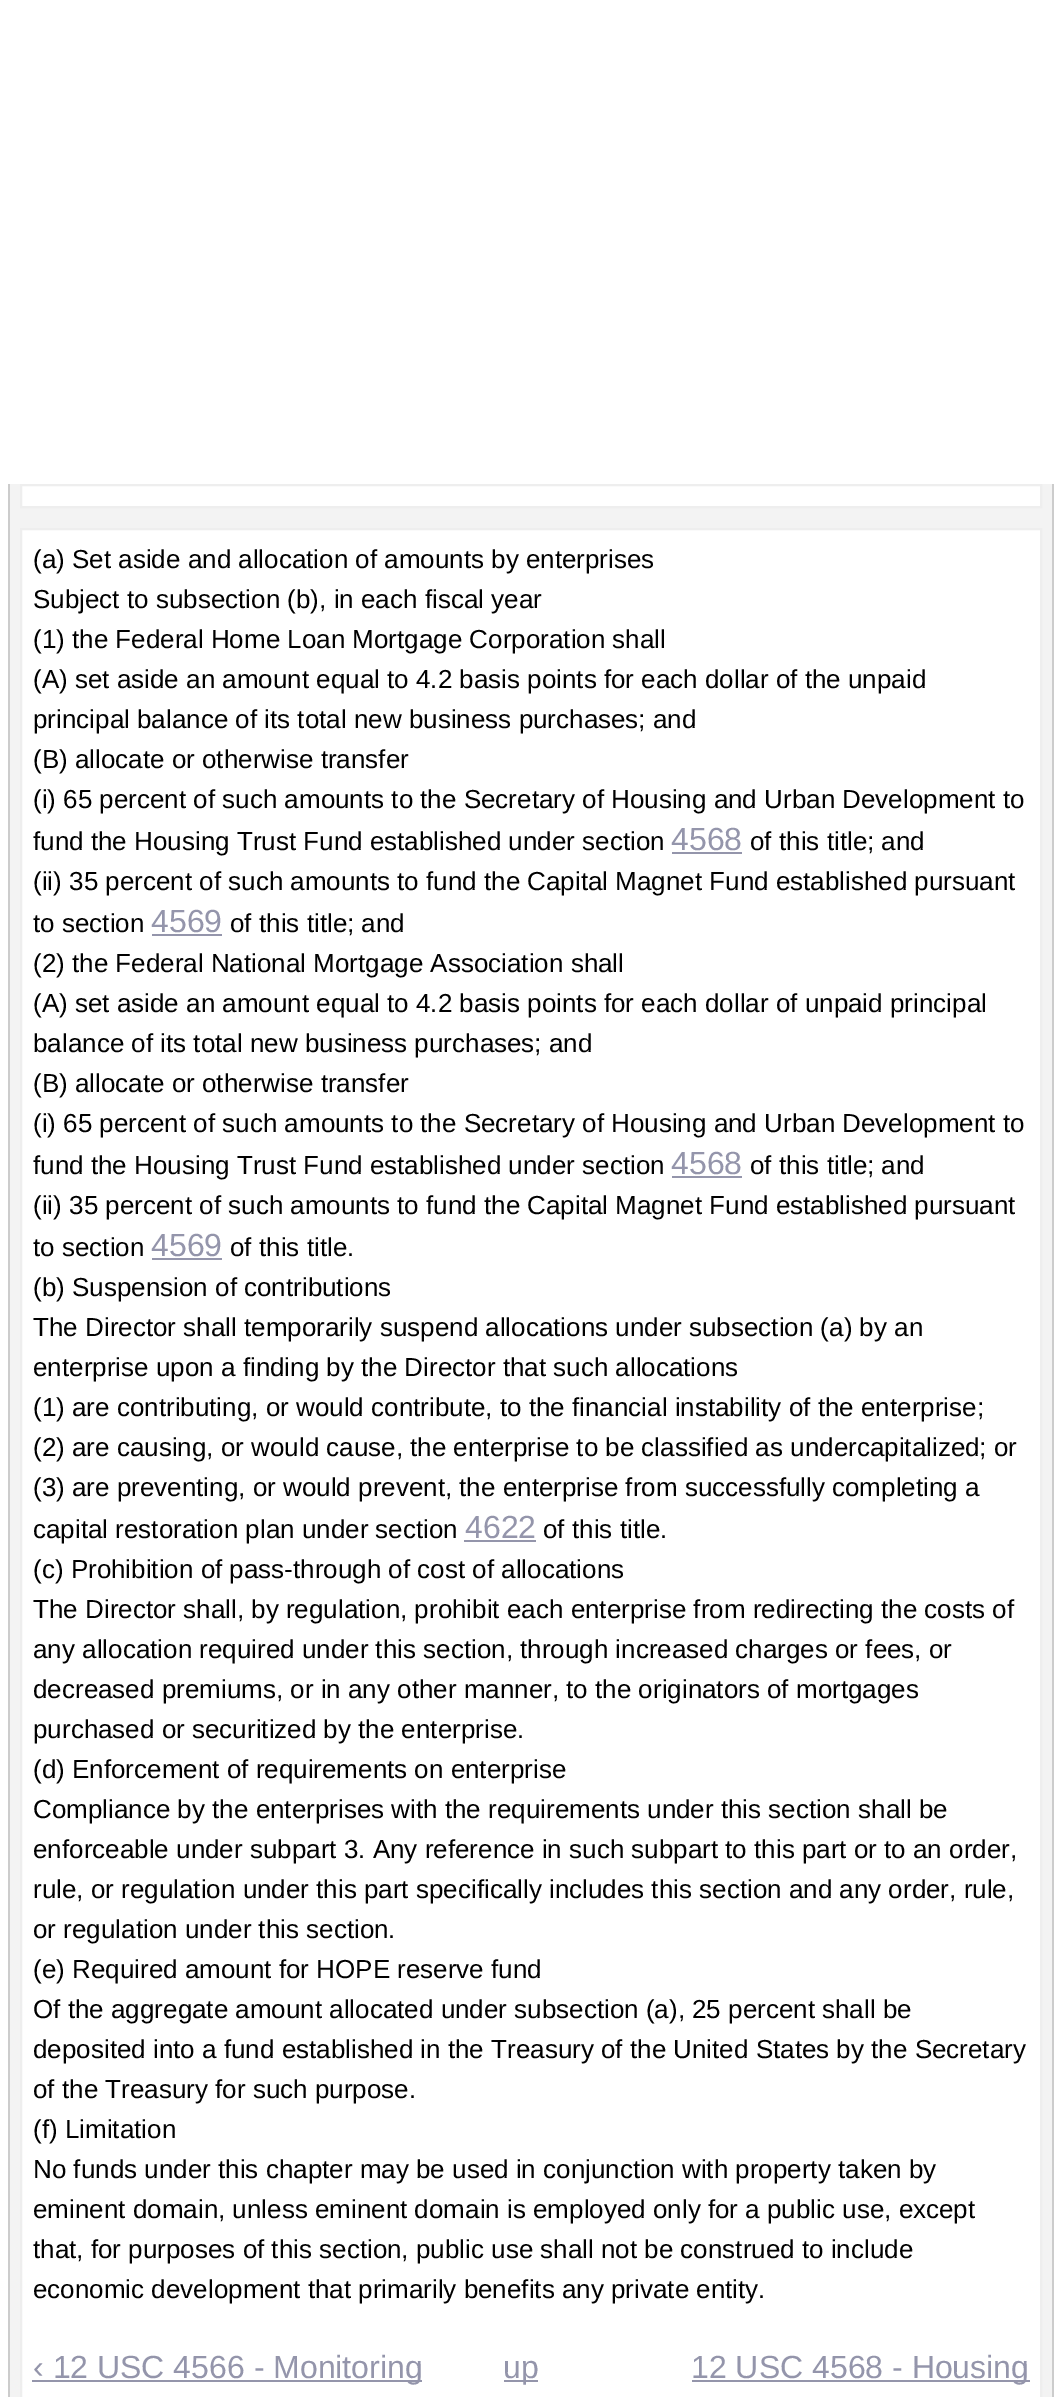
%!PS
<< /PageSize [1061 2397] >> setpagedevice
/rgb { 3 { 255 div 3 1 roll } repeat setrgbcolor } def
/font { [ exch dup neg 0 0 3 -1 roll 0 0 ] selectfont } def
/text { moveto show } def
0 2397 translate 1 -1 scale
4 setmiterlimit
255 255 255 rgb
0 0 1061 2397 rectfill
243 243 243 rgb
10 484 1042 1913 rectfill
204 204 204 rgb
1052 484 2 1913 rectfill
8 484 2 1913 rectfill
255 255 255 rgb
21 485 moveto 1020 0 rlineto 0 22 rlineto -1020 0 rlineto closepath gsave fill grestore
238 238 238 rgb
2 setlinewidth
stroke
255 255 255 rgb
21 529 moveto 1020 0 rlineto 0 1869 rlineto -1020 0 rlineto closepath gsave fill grestore
238 238 238 rgb
stroke
148 149 171 rgb
672 852 70 2 rectfill
152 934 70 2 rectfill
672 1176 70 2 rectfill
152 1258 70 2 rectfill
464 1540 72 2 rectfill
32 2380 390 2 rectfill
504 2380 34 2 rectfill
692 2380 338 2 rectfill
/LiberationSans-Regular 26 font
0 0 0 rgb
(\(a\) Set aside and allocation of amounts by enterprises) 33 568 text
(Subject to subsection \(b\), in each fiscal year) 33 608 text
(\(1\) the Federal Home Loan Mortgage Corporation shall) 33 648 text
(\(A\) set aside an amount equal to 4.2 basis points for each dollar of the unpaid) 33 688 text
(principal balance of its total new business purchases; and) 33 728 text
(\(B\) allocate or otherwise transfer) 33 768 text
(\(i\) 65 percent of such amounts to the Secretary of Housing and Urban Development to) 33 808 text
(fund the Housing Trust Fund established under section) 33 850 text
/LiberationSans-Regular 32 font
148 149 171 rgb
(4568) 671 850 text
/LiberationSans-Regular 26 font
0 0 0 rgb
(of this title; and) 750 850 text
(\(ii\) 35 percent of such amounts to fund the Capital Magnet Fund established pursuant) 33 890 text
(to section) 33 932 text
/LiberationSans-Regular 32 font
148 149 171 rgb
(4569) 151 932 text
/LiberationSans-Regular 26 font
0 0 0 rgb
(of this title; and) 230 932 text
(\(2\) the Federal National Mortgage Association shall) 33 972 text
(\(A\) set aside an amount equal to 4.2 basis points for each dollar of unpaid principal) 33 1012 text
(balance of its total new business purchases; and) 33 1052 text
(\(B\) allocate or otherwise transfer) 33 1092 text
(\(i\) 65 percent of such amounts to the Secretary of Housing and Urban Development to) 33 1132 text
(fund the Housing Trust Fund established under section) 33 1174 text
/LiberationSans-Regular 32 font
148 149 171 rgb
(4568) 671 1174 text
/LiberationSans-Regular 26 font
0 0 0 rgb
(of this title; and) 750 1174 text
(\(ii\) 35 percent of such amounts to fund the Capital Magnet Fund established pursuant) 33 1214 text
(to section) 33 1256 text
/LiberationSans-Regular 32 font
148 149 171 rgb
(4569) 151 1256 text
/LiberationSans-Regular 26 font
0 0 0 rgb
(of this title.) 230 1256 text
(\(b\) Suspension of contributions) 33 1296 text
(The Director shall temporarily suspend allocations under subsection \(a\) by an) 33 1336 text
(enterprise upon a finding by the Director that such allocations) 33 1376 text
(\(1\) are contributing, or would contribute, to the financial instability of the enterprise;) 33 1416 text
(\(2\) are causing, or would cause, the enterprise to be classified as undercapitalized; or) 33 1456 text
(\(3\) are preventing, or would prevent, the enterprise from successfully completing a) 33 1496 text
(capital restoration plan under section) 33 1538 text
/LiberationSans-Regular 32 font
148 149 171 rgb
(4622) 465 1538 text
/LiberationSans-Regular 26 font
0 0 0 rgb
(of this title.) 543 1538 text
(\(c\) Prohibition of pass-through of cost of allocations) 33 1578 text
(The Director shall, by regulation, prohibit each enterprise from redirecting the costs of) 33 1618 text
(any allocation required under this section, through increased charges or fees, or) 33 1658 text
(decreased premiums, or in any other manner, to the originators of mortgages) 33 1698 text
(purchased or securitized by the enterprise.) 33 1738 text
(\(d\) Enforcement of requirements on enterprise) 33 1778 text
(Compliance by the enterprises with the requirements under this section shall be) 33 1818 text
(enforceable under subpart 3. Any reference in such subpart to this part or to an order,) 33 1858 text
(rule, or regulation under this part specifically includes this section and any order, rule,) 33 1898 text
(or regulation under this section.) 33 1938 text
(\(e\) Required amount for HOPE reserve fund) 33 1978 text
(Of the aggregate amount allocated under subsection \(a\), 25 percent shall be) 33 2018 text
(deposited into a fund established in the Treasury of the United States by the Secretary) 33 2058 text
(of the Treasury for such purpose.) 33 2098 text
(\(f\) Limitation) 33 2138 text
(No funds under this chapter may be used in conjunction with property taken by) 33 2178 text
(eminent domain, unless eminent domain is employed only for a public use, except) 33 2218 text
(that, for purposes of this section, public use shall not be construed to include) 33 2258 text
(economic development that primarily benefits any private entity.) 33 2298 text
/LiberationSans-Regular 32 font
148 149 171 rgb
(‹ 12 USC 4566 - Monitoring) 33 2378 text
(up) 503 2378 text
(12 USC 4568 - Housing) 691 2378 text
showpage
